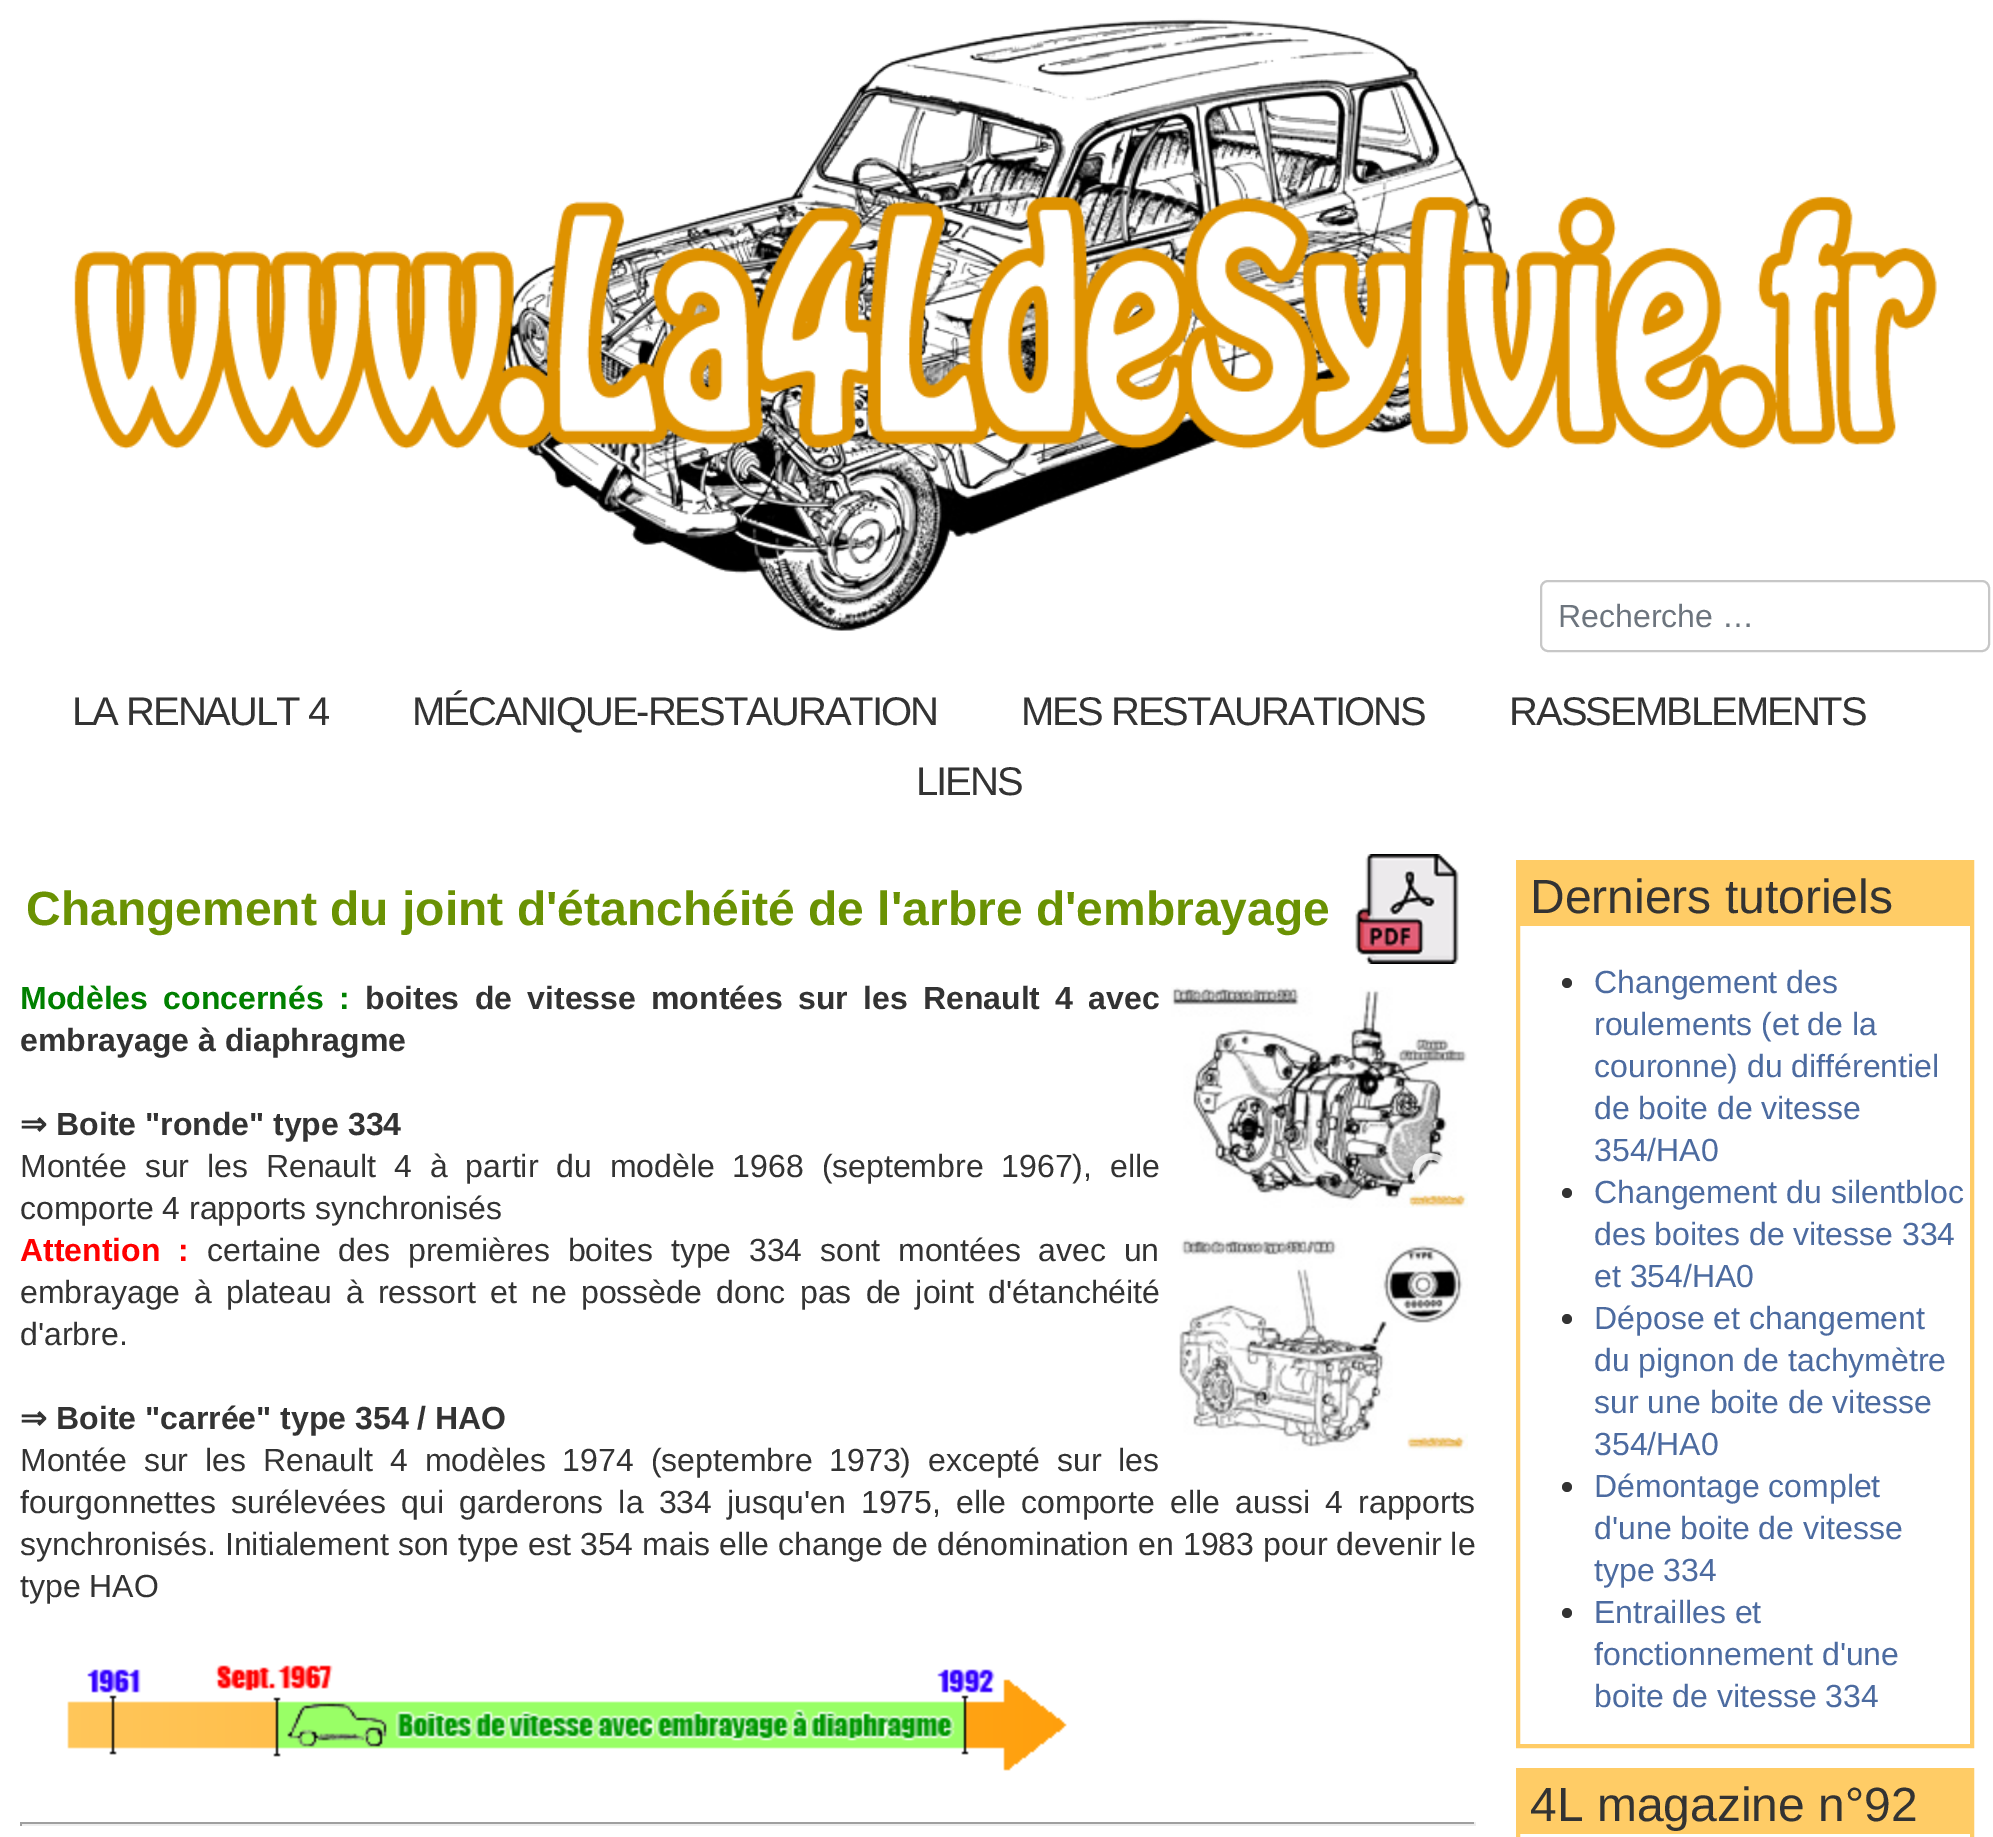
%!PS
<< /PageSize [1993 1837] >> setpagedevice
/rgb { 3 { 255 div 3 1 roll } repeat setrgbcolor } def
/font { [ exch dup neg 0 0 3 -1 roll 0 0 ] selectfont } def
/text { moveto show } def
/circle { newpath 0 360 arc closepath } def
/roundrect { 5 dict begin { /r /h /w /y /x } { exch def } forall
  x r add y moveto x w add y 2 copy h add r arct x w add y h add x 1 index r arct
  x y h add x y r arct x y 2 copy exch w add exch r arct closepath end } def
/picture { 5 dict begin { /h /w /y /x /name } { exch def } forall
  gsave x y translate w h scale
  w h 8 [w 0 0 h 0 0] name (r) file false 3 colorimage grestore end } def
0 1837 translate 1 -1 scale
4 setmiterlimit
255 255 255 rgb
0 0 1993 1837 rectfill
(img_01.rgb) 74 18 1863 613 picture
199 199 199 rgb
2 setlinewidth
1541 581 448 70 7 roundrect stroke
(img_02.rgb) 1355 854 104 110 picture
(img_03.rgb) 1171 987 297 221 picture
(img_04.rgb) 1412 1153 45 45 picture
(img_05.rgb) 1179 1238 289 213 picture
(img_06.rgb) 1449 1434 8 6 picture
(img_07.rgb) 67 1665 1000 106 picture
159 159 159 rgb
20 1822 1456 2 rectfill
238 238 238 rgb
1474 1822 2 4 rectfill
20 1824 1456 2 rectfill
159 159 159 rgb
20 1822 2 4 rectfill
255 204 102 rgb
4 setlinewidth
1518 862 454 884 rectstroke
1520 864 450 62 rectfill
51 51 51 rgb
1567 983 5 circle fill
1567 1193 5 circle fill
1567 1319 5 circle fill
1567 1487 5 circle fill
1567 1613 5 circle fill
255 204 102 rgb
1518 1770 454 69 rectstroke
1520 1772 450 62 rectfill
/LiberationSans-Regular 32 font
109 117 126 rgb
(Recherche …) 1558 627 text
/LiberationSans-Regular 40 font
51 51 51 rgb
72 725 moveto -2 0 (LA RENAULT 4) ashow
412 725 moveto -2 0 (MÉCANIQUE-RESTAURATION) ashow
1021 725 moveto -2 0 (MES RESTAURATIONS) ashow
1509 725 moveto -2 0 (RASSEMBLEMENTS) ashow
916 795 moveto -2 0 (LIENS) ashow
/LiberationSans-Bold 48 font
106 146 3 rgb
(Changement du joint d'étanchéité de l'arbre d'embrayage) 26 925 text
/LiberationSans-Bold 32 font
0 128 0 rgb
20 1009 moveto 6.4 0 32 (Modèles concernés :) widthshow
51 51 51 rgb
365 1009 moveto 6.4 0 32 (boites de vitesse montées sur les Renault 4 avec) widthshow
(embrayage à diaphragme) 20 1051 text
/DejaVuSans-Bold 32 font
(⇒) 20 1135 text
/LiberationSans-Bold 32 font
(Boite "ronde" type 334) 56 1135 text
/LiberationSans-Regular 32 font
20 1177 moveto 9 0 32 (Montée sur les Renault 4 à partir du modèle 1968 \(septembre 1967\), elle) widthshow
(comporte 4 rapports synchronisés) 20 1219 text
/LiberationSans-Bold 32 font
255 0 0 rgb
20 1261 moveto 9 0 32 (Attention :) widthshow
/LiberationSans-Regular 32 font
51 51 51 rgb
207 1261 moveto 8.75 0 32 (certaine des premières boites type 334 sont montées avec un) widthshow
20 1303 moveto 5.4 0 32 (embrayage à plateau à ressort et ne possède donc pas de joint d'étanchéité) widthshow
(d'arbre.) 20 1345 text
/DejaVuSans-Bold 32 font
(⇒) 20 1429 text
/LiberationSans-Bold 32 font
(Boite "carrée" type 354 / HAO) 56 1429 text
/LiberationSans-Regular 32 font
20 1471 moveto 8 0 32 (Montée sur les Renault 4 modèles 1974 \(septembre 1973\) excepté sur les) widthshow
20 1513 moveto 6.4 0 32 (fourgonnettes surélevées qui garderons la 334 jusqu'en 1975, elle comporte elle aussi 4 rapports) widthshow
20 1555 moveto 0.25 0 32 (synchronisés. Initialement son type est 354 mais elle change de dénomination en 1983 pour devenir le) widthshow
(type HAO) 20 1597 text
/LiberationSans-Regular 48 font
(Derniers tutoriels) 1530 913 text
/LiberationSans-Regular 32 font
76 107 160 rgb
(Changement des) 1594 993 text
(roulements \(et de la) 1594 1035 text
(couronne\) du différentiel) 1594 1077 text
(de boite de vitesse) 1594 1119 text
(354/HA0) 1594 1161 text
(Changement du silentbloc) 1594 1203 text
(des boites de vitesse 334) 1594 1245 text
(et 354/HA0) 1594 1287 text
(Dépose et changement) 1594 1329 text
(du pignon de tachymètre) 1594 1371 text
(sur une boite de vitesse) 1594 1413 text
(354/HA0) 1594 1455 text
(Démontage complet) 1594 1497 text
(d'une boite de vitesse) 1594 1539 text
(type 334) 1594 1581 text
(Entrailles et) 1594 1623 text
(fonctionnement d'une) 1594 1665 text
(boite de vitesse 334) 1594 1707 text
/LiberationSans-Regular 48 font
51 51 51 rgb
(4L magazine n°92) 1530 1821 text
showpage
